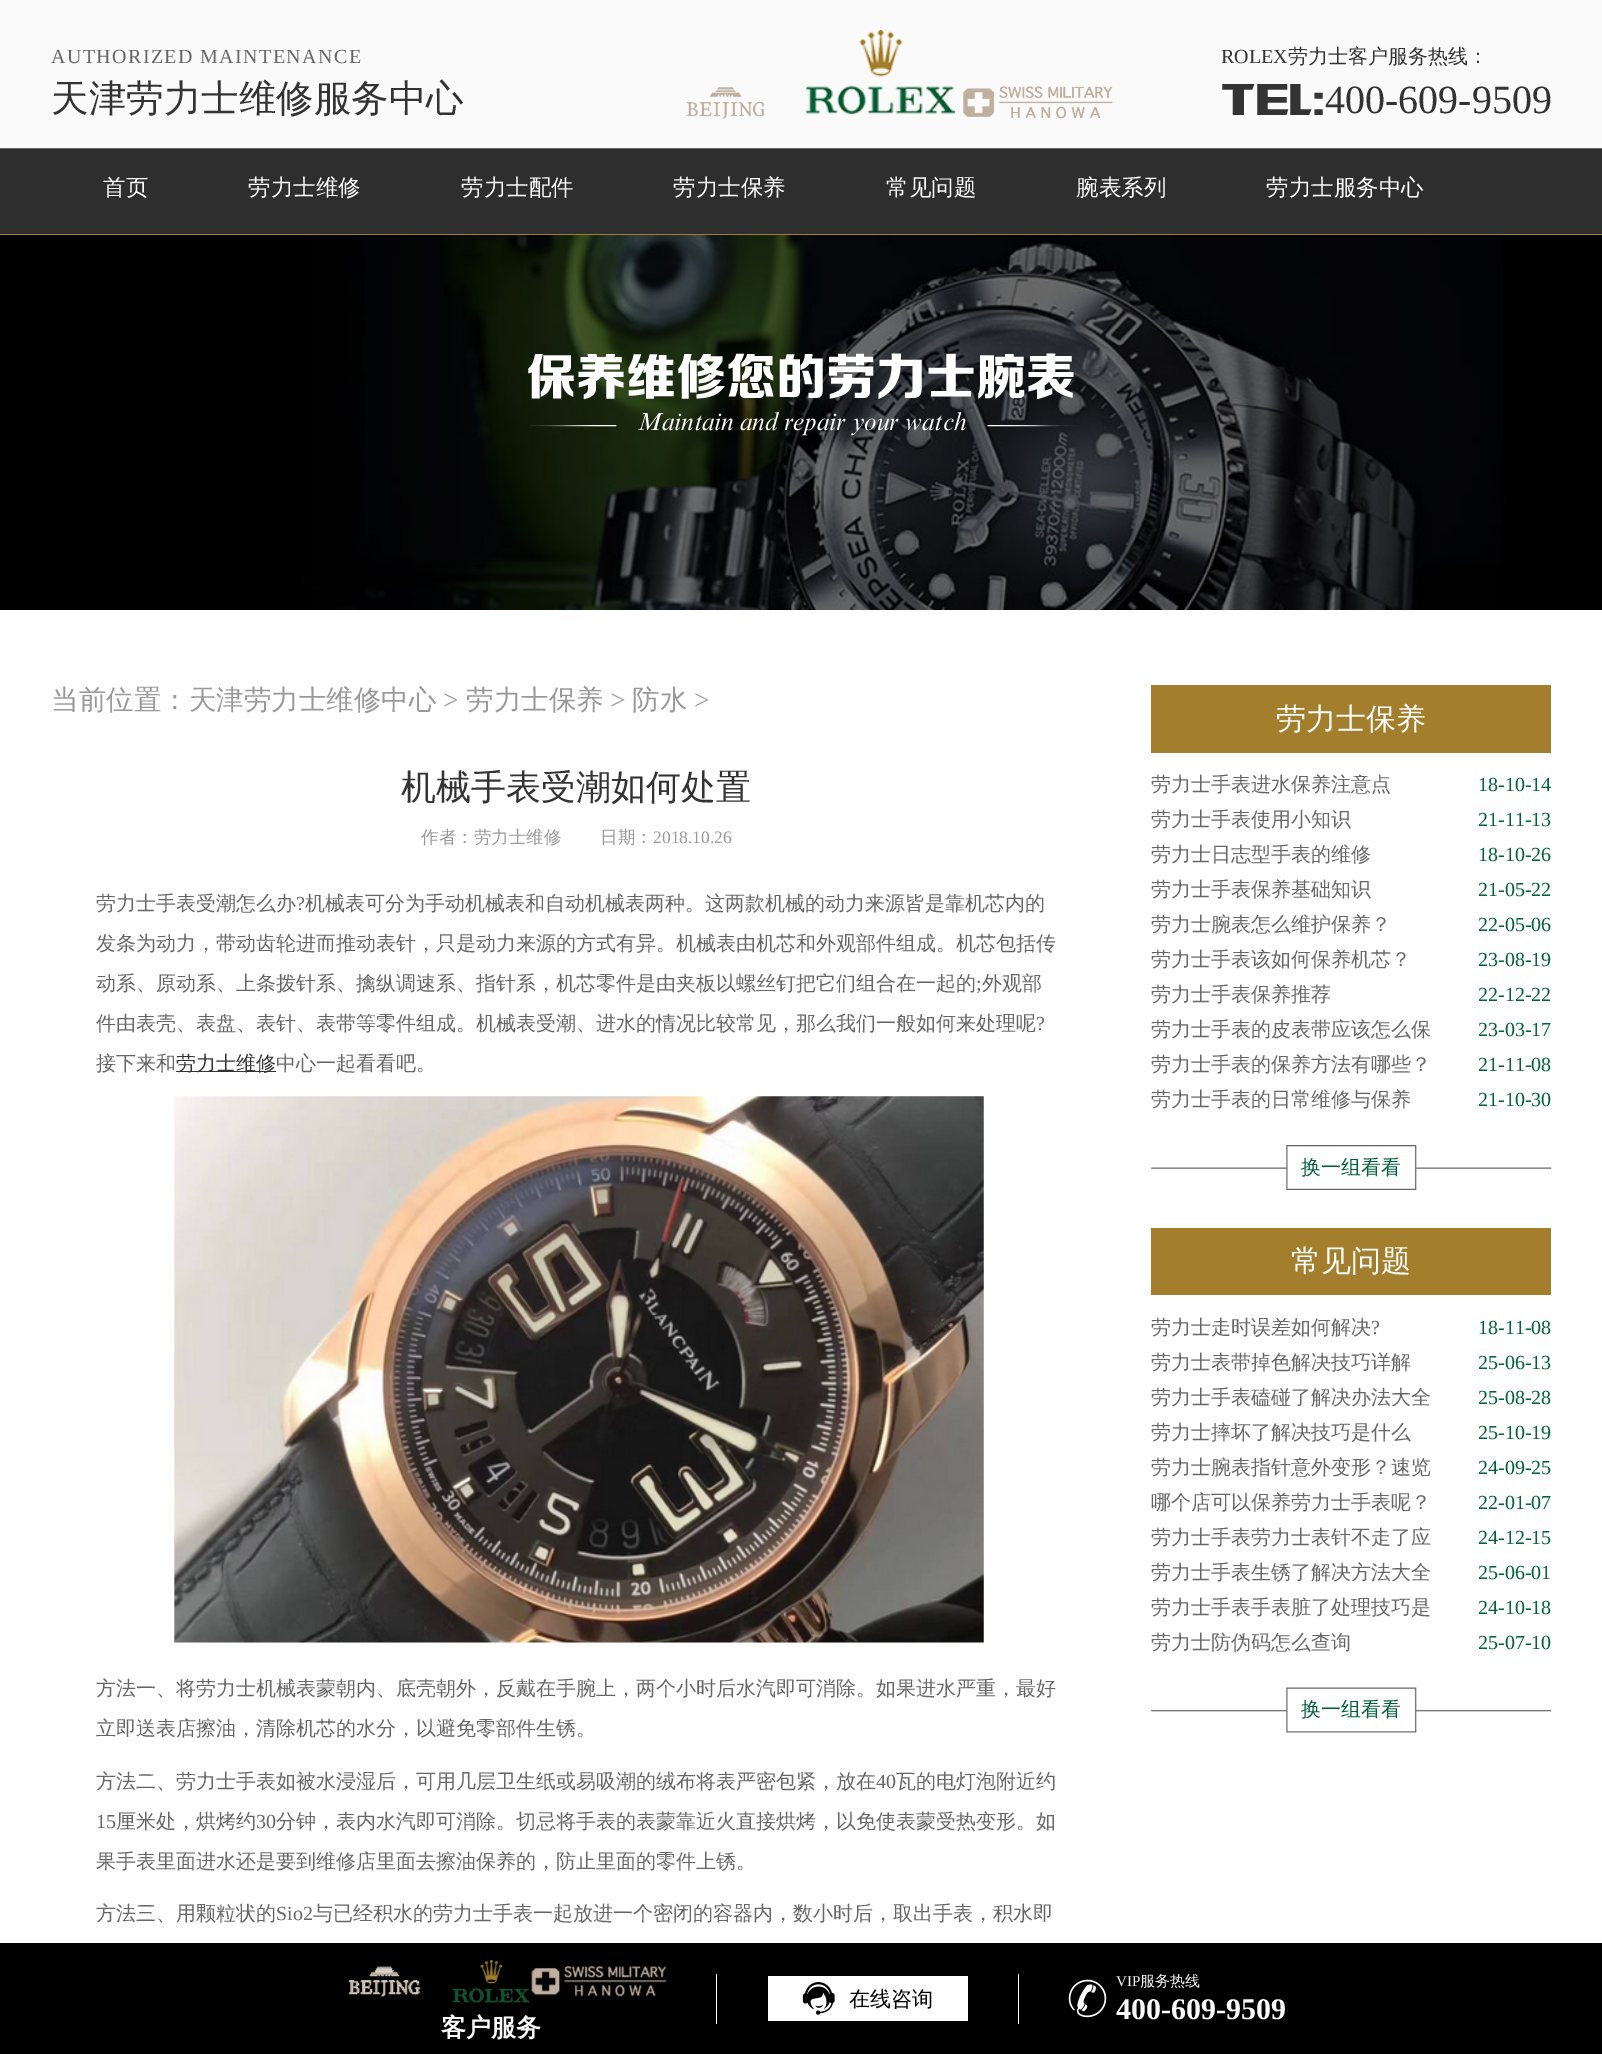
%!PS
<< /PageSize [1602 2054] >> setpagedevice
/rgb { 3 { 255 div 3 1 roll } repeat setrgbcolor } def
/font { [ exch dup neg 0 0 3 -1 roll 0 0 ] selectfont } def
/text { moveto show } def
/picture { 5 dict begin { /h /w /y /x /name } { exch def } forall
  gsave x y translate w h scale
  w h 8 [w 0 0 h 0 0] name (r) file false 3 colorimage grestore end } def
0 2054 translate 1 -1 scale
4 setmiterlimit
255 255 255 rgb
0 0 1602 2054 rectfill
250 250 250 rgb
0 0 1602 148 rectfill
(img_01.rgb) 686 87 79 32 picture
(img_02.rgb) 806 29 150 85 picture
(img_03.rgb) 963 86 150 33 picture
46 46 46 rgb
0 149 1602 85 rectfill
102 102 102 rgb
0 148 1602 1 rectfill
164 127 46 rgb
0 234 1602 1 rectfill
(img_04.rgb) 0 235 1602 375 picture
(img_05.rgb) 529 425 546 2 picture
51 51 51 rgb
176 1071 100 1 rectfill
(img_06.rgb) 174 1096 810 547 picture
163 126 44 rgb
1151 685 400 68 rectfill
(img_07.rgb) 1151 1145 401 45 picture
1151 1228 400 67 rectfill
(img_08.rgb) 1151 1687 401 46 picture
0 0 0 rgb
0 1943 1602 111 rectfill
255 255 255 rgb
716 1974 1 50 rectfill
768 1976 200 45 rectfill
(img_09.rgb) 802 1982 33 33 picture
1018 1974 1 50 rectfill
(img_10.rgb) 1068 1979 39 39 picture
(img_11.rgb) 348 1966 73 31 picture
(img_12.rgb) 453 1960 77 43 picture
(img_13.rgb) 531 1966 136 31 picture
/LiberationSerif-Regular 20 font
102 102 102 rgb
51 63 moveto 1.4 0 (AUTHORIZED MAINTENANCE) ashow
/WenQuanYiZenHei-Medium 37.5 font
51 51 51 rgb
(天津劳力士维修服务中心) 51 111 text
/LiberationSerif-Regular 20 font
(ROLEX) 1221 63 text
/WenQuanYiZenHei-Medium 20 font
(劳力士客户服务热线：) 1288 63 text
/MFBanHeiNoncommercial-Regular 45 font
(TEL:) 1221 113 text
/LiberationSerif-Regular 40 font
(400-609-9509) 1325 113 text
/WenQuanYiZenHei-Medium 22.5 font
255 255 255 rgb
(首页) 103 195 text
(劳力士维修) 248 195 text
(劳力士配件) 461 195 text
(劳力士保养) 673 195 text
(常见问题) 886 195 text
(腕表系列) 1076 195 text
(劳力士服务中心) 1266 195 text
/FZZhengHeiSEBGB-Regular 50 font
(保养维修您的劳力士腕表) 526 394 text
/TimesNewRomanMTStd-Italic 25 font
(Maintain and repair your watch) 637 430 text
/WenQuanYiZenHei-Medium 27.5 font
153 153 153 rgb
(当前位置：天津劳力士维修中心) 51 709 text
/LiberationSerif-Regular 27.5 font
(>) 443 709 text
/WenQuanYiZenHei-Medium 27.5 font
(劳力士保养) 466 709 text
/LiberationSerif-Regular 27.5 font
(>) 610 709 text
/WenQuanYiZenHei-Medium 27.5 font
(防水) 632 709 text
/LiberationSerif-Regular 27.5 font
(>) 694 709 text
/WenQuanYiZenHei-Medium 35 font
51 51 51 rgb
(机械手表受潮如何处置) 401 799 text
/WenQuanYiZenHei-Medium 17.5 font
153 153 153 rgb
(作者：劳力士维修) 421 843 text
(日期：) 600 843 text
/LiberationSerif-Regular 17.5 font
(2018.10.26) 653 843 text
/WenQuanYiZenHei-Medium 20 font
102 102 102 rgb
(劳力士手表受潮怎么办) 96 910 text
/LiberationSerif-Regular 20 font
(?) 296 910 text
/WenQuanYiZenHei-Medium 20 font
(机械表可分为手动机械表和自动机械表两种。这两款机械的动力来源皆是靠机芯内的) 305 910 text
(发条为动力，带动齿轮进而推动表针，只是动力来源的方式有异。机械表由机芯和外观部件组成。机芯包括传) 96 950 text
(动系、原动系、上条拨针系、擒纵调速系、指针系，机芯零件是由夹板以螺丝钉把它们组合在一起的) 96 990 text
/LiberationSerif-Regular 20 font
(;) 976 990 text
/WenQuanYiZenHei-Medium 20 font
(外观部) 982 990 text
(件由表壳、表盘、表针、表带等零件组成。机械表受潮、进水的情况比较常见，那么我们一般如何来处理呢) 96 1030 text
/LiberationSerif-Regular 20 font
(?) 1036 1030 text
/WenQuanYiZenHei-Medium 20 font
(接下来和) 96 1070 text
51 51 51 rgb
(劳力士维修) 176 1070 text
102 102 102 rgb
(中心一起看看吧。) 276 1070 text
(方法一、将劳力士机械表蒙朝内、底壳朝外，反戴在手腕上，两个小时后水汽即可消除。如果进水严重，最好) 96 1695 text
(立即送表店擦油，清除机芯的水分，以避免零部件生锈。) 96 1735 text
(方法二、劳力士手表如被水浸湿后，可用几层卫生纸或易吸潮的绒布将表严密包紧，放在) 96 1788 text
/LiberationSerif-Regular 20 font
(40) 876 1788 text
/WenQuanYiZenHei-Medium 20 font
(瓦的电灯泡附近约) 896 1788 text
/LiberationSerif-Regular 20 font
(15) 96 1828 text
/WenQuanYiZenHei-Medium 20 font
(厘米处，烘烤约) 116 1828 text
/LiberationSerif-Regular 20 font
(30) 256 1828 text
/WenQuanYiZenHei-Medium 20 font
(分钟，表内水汽即可消除。切忌将手表的表蒙靠近火直接烘烤，以免使表蒙受热变形。如) 276 1828 text
(果手表里面进水还是要到维修店里面去擦油保养的，防止里面的零件上锈。) 96 1868 text
(方法三、用颗粒状的) 96 1920 text
/LiberationSerif-Regular 20 font
(Sio2) 276 1920 text
/WenQuanYiZenHei-Medium 20 font
(与已经积水的劳力士手表一起放进一个密闭的容器内，数小时后，取出手表，积水即) 313 1920 text
/WenQuanYiZenHei-Medium 30 font
255 255 255 rgb
(劳力士保养) 1276 729 text
/WenQuanYiZenHei-Medium 20 font
102 102 102 rgb
(劳力士手表进水保养注意点) 1151 791 text
/LiberationSerif-Regular 20 font
0 97 58 rgb
(18-10-14) 1478 791 text
/WenQuanYiZenHei-Medium 20 font
102 102 102 rgb
(劳力士手表使用小知识) 1151 826 text
/LiberationSerif-Regular 20 font
0 97 58 rgb
(21-11-13) 1478 826 text
/WenQuanYiZenHei-Medium 20 font
102 102 102 rgb
(劳力士日志型手表的维修) 1151 861 text
/LiberationSerif-Regular 20 font
0 97 58 rgb
(18-10-26) 1478 861 text
/WenQuanYiZenHei-Medium 20 font
102 102 102 rgb
(劳力士手表保养基础知识) 1151 896 text
/LiberationSerif-Regular 20 font
0 97 58 rgb
(21-05-22) 1478 896 text
/WenQuanYiZenHei-Medium 20 font
102 102 102 rgb
(劳力士腕表怎么维护保养？) 1151 931 text
/LiberationSerif-Regular 20 font
0 97 58 rgb
(22-05-06) 1478 931 text
/WenQuanYiZenHei-Medium 20 font
102 102 102 rgb
(劳力士手表该如何保养机芯？) 1151 966 text
/LiberationSerif-Regular 20 font
0 97 58 rgb
(23-08-19) 1478 966 text
/WenQuanYiZenHei-Medium 20 font
102 102 102 rgb
(劳力士手表保养推荐) 1151 1001 text
/LiberationSerif-Regular 20 font
0 97 58 rgb
(22-12-22) 1478 1001 text
/WenQuanYiZenHei-Medium 20 font
102 102 102 rgb
(劳力士手表的皮表带应该怎么保) 1151 1036 text
/LiberationSerif-Regular 20 font
0 97 58 rgb
(23-03-17) 1478 1036 text
/WenQuanYiZenHei-Medium 20 font
102 102 102 rgb
(劳力士手表的保养方法有哪些？) 1151 1071 text
/LiberationSerif-Regular 20 font
0 97 58 rgb
(21-11-08) 1478 1071 text
/WenQuanYiZenHei-Medium 20 font
102 102 102 rgb
(劳力士手表的日常维修与保养) 1151 1106 text
/LiberationSerif-Regular 20 font
0 97 58 rgb
(21-10-30) 1478 1106 text
/WenQuanYiZenHei-Medium 20 font
(换一组看看) 1301 1174 text
/WenQuanYiZenHei-Medium 30 font
255 255 255 rgb
(常见问题) 1291 1271 text
/WenQuanYiZenHei-Medium 20 font
102 102 102 rgb
(劳力士走时误差如何解决) 1151 1334 text
/LiberationSerif-Regular 20 font
(?) 1371 1334 text
0 97 58 rgb
(18-11-08) 1478 1334 text
/WenQuanYiZenHei-Medium 20 font
102 102 102 rgb
(劳力士表带掉色解决技巧详解) 1151 1369 text
/LiberationSerif-Regular 20 font
0 97 58 rgb
(25-06-13) 1478 1369 text
/WenQuanYiZenHei-Medium 20 font
102 102 102 rgb
(劳力士手表磕碰了解决办法大全) 1151 1404 text
/LiberationSerif-Regular 20 font
0 97 58 rgb
(25-08-28) 1478 1404 text
/WenQuanYiZenHei-Medium 20 font
102 102 102 rgb
(劳力士摔坏了解决技巧是什么) 1151 1439 text
/LiberationSerif-Regular 20 font
0 97 58 rgb
(25-10-19) 1478 1439 text
/WenQuanYiZenHei-Medium 20 font
102 102 102 rgb
(劳力士腕表指针意外变形？速览) 1151 1474 text
/LiberationSerif-Regular 20 font
0 97 58 rgb
(24-09-25) 1478 1474 text
/WenQuanYiZenHei-Medium 20 font
102 102 102 rgb
(哪个店可以保养劳力士手表呢？) 1151 1509 text
/LiberationSerif-Regular 20 font
0 97 58 rgb
(22-01-07) 1478 1509 text
/WenQuanYiZenHei-Medium 20 font
102 102 102 rgb
(劳力士手表劳力士表针不走了应) 1151 1544 text
/LiberationSerif-Regular 20 font
0 97 58 rgb
(24-12-15) 1478 1544 text
/WenQuanYiZenHei-Medium 20 font
102 102 102 rgb
(劳力士手表生锈了解决方法大全) 1151 1579 text
/LiberationSerif-Regular 20 font
0 97 58 rgb
(25-06-01) 1478 1579 text
/WenQuanYiZenHei-Medium 20 font
102 102 102 rgb
(劳力士手表手表脏了处理技巧是) 1151 1614 text
/LiberationSerif-Regular 20 font
0 97 58 rgb
(24-10-18) 1478 1614 text
/WenQuanYiZenHei-Medium 20 font
102 102 102 rgb
(劳力士防伪码怎么查询) 1151 1649 text
/LiberationSerif-Regular 20 font
0 97 58 rgb
(25-07-10) 1478 1649 text
/WenQuanYiZenHei-Medium 20 font
(换一组看看) 1301 1716 text
/WenQuanYiZenHei-Medium 21 font
0 0 0 rgb
(在线咨询) 849 2006 text
/LiberationSerif-Regular 15 font
255 255 255 rgb
(VIP) 1116 1986 text
/WenQuanYiZenHei-Medium 15 font
(服务热线) 1140 1986 text
/LiberationSerif-Bold 30 font
(400-609-9509) 1116 2019 text
/WenQuanYiZenHei-Bold 25 font
(客户服务) 441 2036 text
showpage
